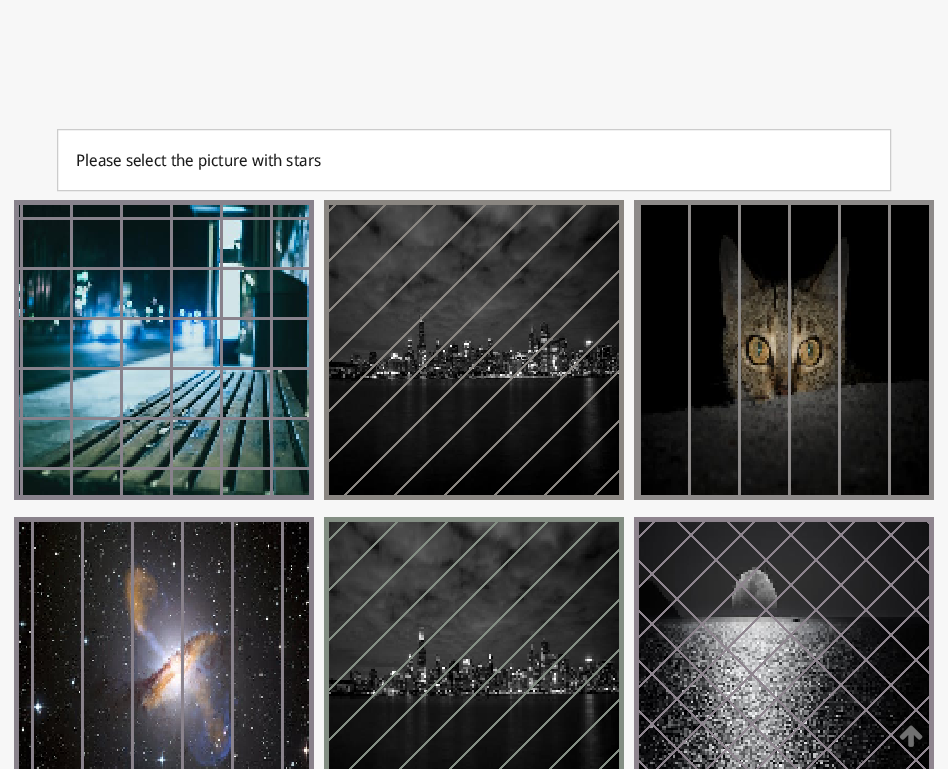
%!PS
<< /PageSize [948 769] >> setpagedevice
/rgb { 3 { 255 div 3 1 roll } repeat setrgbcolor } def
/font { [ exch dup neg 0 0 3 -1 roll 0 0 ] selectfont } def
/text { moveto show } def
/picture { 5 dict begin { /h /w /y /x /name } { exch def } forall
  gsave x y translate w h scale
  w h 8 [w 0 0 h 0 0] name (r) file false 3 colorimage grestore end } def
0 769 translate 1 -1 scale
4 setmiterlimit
247 247 247 rgb
0 0 948 769 rectfill
255 255 255 rgb
57.5 129.5 moveto 833 0 rlineto 0 61 rlineto -833 0 rlineto closepath gsave fill grestore
204 204 204 rgb
stroke
(img_01.rgb) 14 200 300 300 picture
(img_02.rgb) 324 200 300 300 picture
(img_03.rgb) 634 200 300 300 picture
(img_04.rgb) 14 517 300 252 picture
(img_05.rgb) 324 517 300 252 picture
(img_06.rgb) 634 517 300 252 picture
(img_07.rgb) 899 725 24 22 picture
/NotoSansDisplay-Regular 16 font
26 26 26 rgb
(Please select the picture with stars) 76 166 text
showpage
